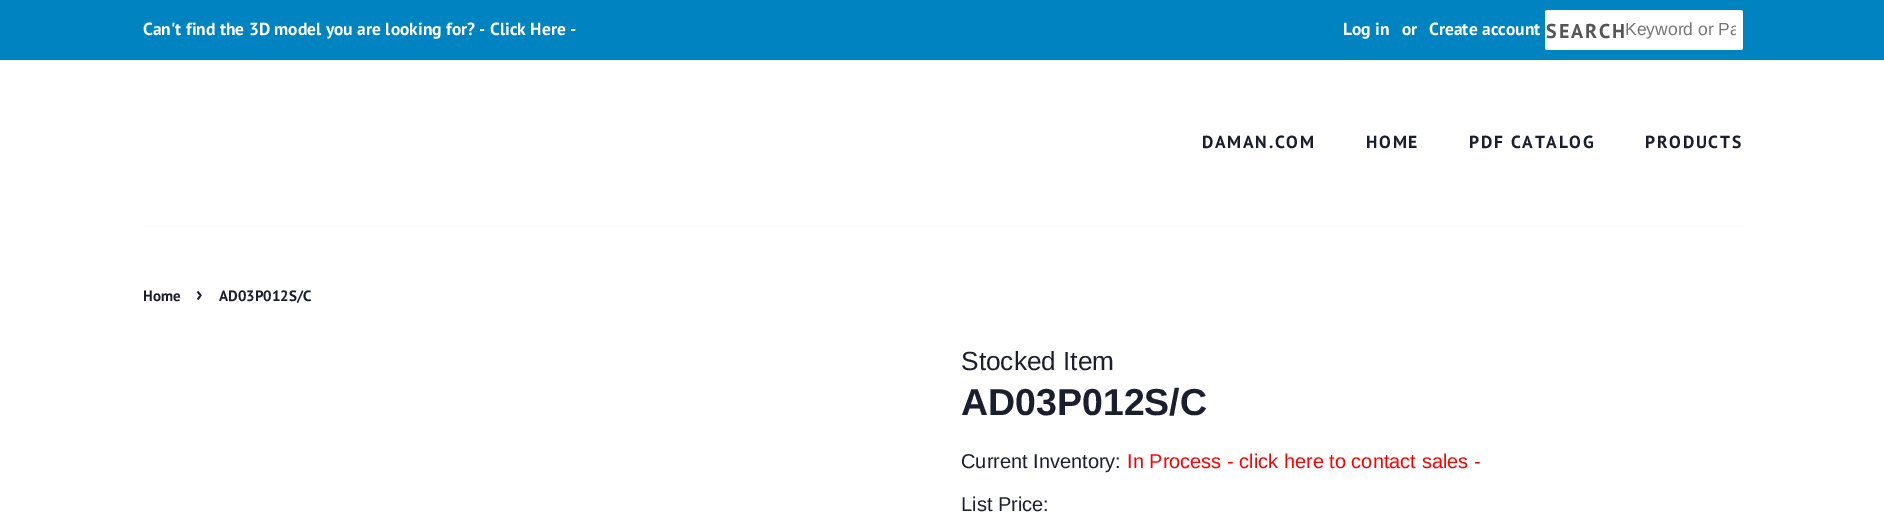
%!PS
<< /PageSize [1884 514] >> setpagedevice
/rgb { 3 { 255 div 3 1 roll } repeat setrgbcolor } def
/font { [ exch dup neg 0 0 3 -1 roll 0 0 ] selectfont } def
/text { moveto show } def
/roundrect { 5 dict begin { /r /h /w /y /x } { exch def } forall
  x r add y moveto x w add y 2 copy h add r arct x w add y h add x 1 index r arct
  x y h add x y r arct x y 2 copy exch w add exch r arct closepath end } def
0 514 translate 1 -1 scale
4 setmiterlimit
255 255 255 rgb
0 0 1884 514 rectfill
0 131 193 rgb
0 0 1884 60 rectfill
255 255 255 rgb
1545 10 198 40 2.5 roundrect fill
250 249 247 rgb
143 226 1600 1 rectfill
/PTSans-Bold 17.5 font
255 255 255 rgb
(Can't find the 3D model you are looking for? - Click Here -) 143 35 text
(Log in) 1343 35 text
(or) 1402 35 text
(Create account) 1429 35 text
/PTSans-Bold 20 font
85 85 85 rgb
1546 38 moveto 2 0 (SEARCH) ashow
gsave
1625 19 111 20 rectclip
/LiberationSans-Regular 17.5 font
117 117 117 rgb
(Keyword or Pa) 1625 35 text
grestore
/PTSans-Bold 17.5 font
27 30 47 rgb
1202 148 moveto 1.75 0 (DAMAN.COM) ashow
1366 148 moveto 1.75 0 (HOME) ashow
1469 148 moveto 1.75 0 (PDF CATALOG) ashow
1645 148 moveto 1.75 0 (PRODUCTS) ashow
/PTSans-Bold 15 font
(Home) 143 301 text
/PTSans-Bold 21 font
(›) 196 301 text
/PTSans-Bold 15 font
(AD03P012S/C) 219 301 text
/LiberationSans-Regular 26.25 font
(Stocked Item) 961 370 text
/LiberationSans-Bold 37.5 font
(AD03P012S/C) 961 415 text
/LiberationSans-Regular 20 font
(Current Inventory:) 961 468 text
255 0 0 rgb
(In Process - click here to contact sales -) 1127 468 text
27 30 47 rgb
(List Price:) 961 511 text
showpage
